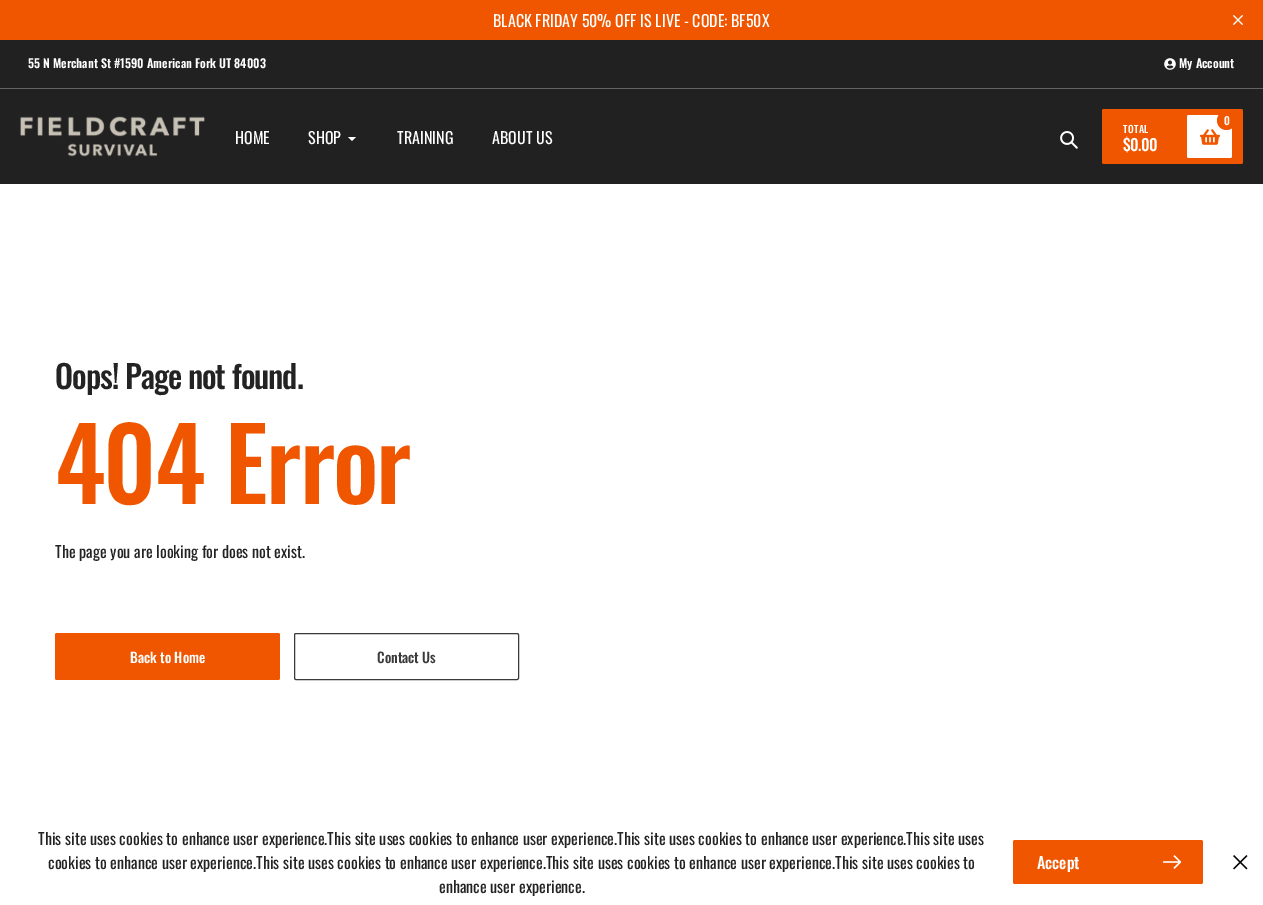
%!PS
<< /PageSize [1263 905] >> setpagedevice
/rgb { 3 { 255 div 3 1 roll } repeat setrgbcolor } def
/font { [ exch dup neg 0 0 3 -1 roll 0 0 ] selectfont } def
/text { moveto show } def
/circle { newpath 0 360 arc closepath } def
/roundrect { 5 dict begin { /r /h /w /y /x } { exch def } forall
  x r add y moveto x w add y 2 copy h add r arct x w add y h add x 1 index r arct
  x y h add x y r arct x y 2 copy exch w add exch r arct closepath end } def
/picture { 5 dict begin { /h /w /y /x /name } { exch def } forall
  gsave x y translate w h scale
  w h 8 [w 0 0 h 0 0] name (r) file false 3 colorimage grestore end } def
0 905 translate 1 -1 scale
4 setmiterlimit
255 255 255 rgb
0 0 1263 905 rectfill
240 86 0 rgb
0 0 1263 40 rectfill
(img_01.rgb) 1233 15 10 10 picture
33 33 33 rgb
0 40 1263 144 rectfill
100 100 100 rgb
0 88 1263 1 rectfill
(img_02.rgb) 1164 58 12 12 picture
(img_03.rgb) 20 116 185 41 picture
255 255 255 rgb
356 137 moveto -4 4 rlineto -4 -4 rlineto fill
(img_04.rgb) 1060 131 18 18 picture
240 86 0 rgb
1102 109 141 55 2 roundrect fill
255 255 255 rgb
1187 115 45 43 2 roundrect fill
(img_05.rgb) 1200 129 20 16 picture
240 86 0 rgb
1226.5 120.5 9.5 circle fill
55 633 225 47 2 roundrect fill
58 58 58 rgb
294.5 633.5 224 46 1.5 roundrect stroke
240 86 0 rgb
1013 840 190 44 2 roundrect fill
(img_06.rgb) 1162 855 20 14 picture
(img_07.rgb) 1233 855 15 15 picture
/Oswald-Regular 16 font
255 255 255 rgb
(BLACK FRIDAY 50% OFF IS LIVE - CODE: BF50X) 493 27 text
/Oswald-SemiBold 12 font
(55 N Merchant St #1590 American Fork UT 84003) 28 68 text
(My Account) 1179 68 text
/Oswald-Regular 16 font
(HOME) 235 144 text
(SHOP) 308 144 text
(TRAINING) 397 144 text
(ABOUT US) 492 144 text
/Oswald-Medium 11 font
(0) 1224 125 text
/Oswald-Medium 10 font
1123 133 moveto 0.5 0 (TOTAL) ashow
/Oswald-Medium 16 font
1123 151 moveto -0.5 0 ($0.00) ashow
/Oswald-Medium 32 font
35 35 35 rgb
55 389 moveto -1 0 (Oops! Page not found.) ashow
/Oswald-Medium 100 font
240 86 0 rgb
55 504 moveto -2 0 (404 Error) ashow
/Oswald-Regular 16 font
35 35 35 rgb
(The page you are looking for does not exist.) 55 558 text
/Oswald-Medium 14 font
255 255 255 rgb
(Back to Home) 130 663 text
58 58 58 rgb
(Contact Us) 377 663 text
/Oswald-Regular 16 font
35 35 35 rgb
(This site uses cookies to enhance user experience.This site uses cookies to enhance user experience.This site uses cookies to enhance user experience.This site uses) 38 845 text
(cookies to enhance user experience.This site uses cookies to enhance user experience.This site uses cookies to enhance user experience.This site uses cookies to) 48 869 text
(enhance user experience.) 439 893 text
/Oswald-Medium 16 font
255 255 255 rgb
(Accept) 1037 869 text
showpage
